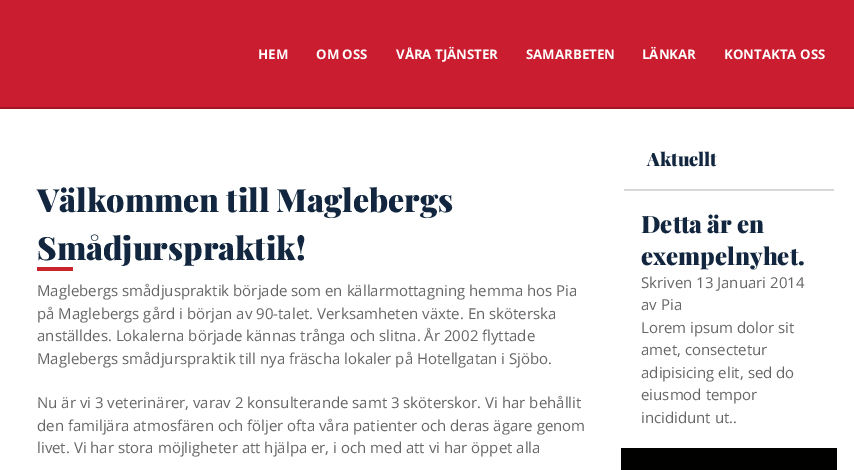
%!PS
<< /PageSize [854 470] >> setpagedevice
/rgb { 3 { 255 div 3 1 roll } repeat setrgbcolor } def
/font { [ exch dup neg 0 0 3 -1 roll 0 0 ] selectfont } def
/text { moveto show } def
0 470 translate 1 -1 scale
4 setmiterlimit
255 255 255 rgb
0 0 854 470 rectfill
202 29 47 rgb
0 0 854 107 rectfill
162 23 38 rgb
0 107 854 2 rectfill
201 36 43 rgb
37 267 36 4 rectfill
215 217 214 rgb
624 189 210 2 rectfill
1 1 0 rgb
621 448 216 22 rectfill
/OpenSans-Bold 13.25 font
255 255 255 rgb
(HEM) 258 59 text
(OM OSS) 316 59 text
(VÅRA TJÄNSTER) 396 59 text
(SAMARBETEN) 526 59 text
(LÄNKAR) 642 59 text
(KONTAKTA OSS) 724 59 text
/PlayfairDisplay-Black 32 font
18 39 63 rgb
(Välkommen till Maglebergs) 37 212 text
(Smådjurspraktik!) 37 260 text
/OpenSans-Regular 15 font
102 102 102 rgb
(Maglebergs smådjuspraktik började som en källarmottagning hemma hos Pia) 37 296 text
(på Maglebergs gård i början av 90-talet. Verksamheten växte. En sköterska) 37 319 text
(anställdes. Lokalerna började kännas trånga och slitna. År 2002 flyttade) 37 341 text
(Maglebergs smådjurspraktik till nya fräscha lokaler på Hotellgatan i Sjöbo.) 37 364 text
(Nu är vi 3 veterinärer, varav 2 konsulterande samt 3 sköterskor. Vi har behållit) 37 408 text
(den familjära atmosfären och följer ofta våra patienter och deras ägare genom) 37 431 text
(livet. Vi har stora möjligheter att hjälpa er, i och med att vi har öppet alla) 37 453 text
/PlayfairDisplay-Black 18.5 font
18 39 63 rgb
(Aktuellt) 647 166 text
/PlayfairDisplay-Black 24 font
(Detta är en) 641 233 text
(exempelnyhet.) 641 265 text
/OpenSans-Regular 15 font
102 102 102 rgb
(Skriven 13 Januari 2014) 641 288 text
(av Pia) 641 310 text
(Lorem ipsum dolor sit) 641 333 text
(amet, consectetur) 641 355 text
(adipisicing elit, sed do) 641 378 text
(eiusmod tempor) 641 400 text
(incididunt ut..) 641 423 text
showpage
